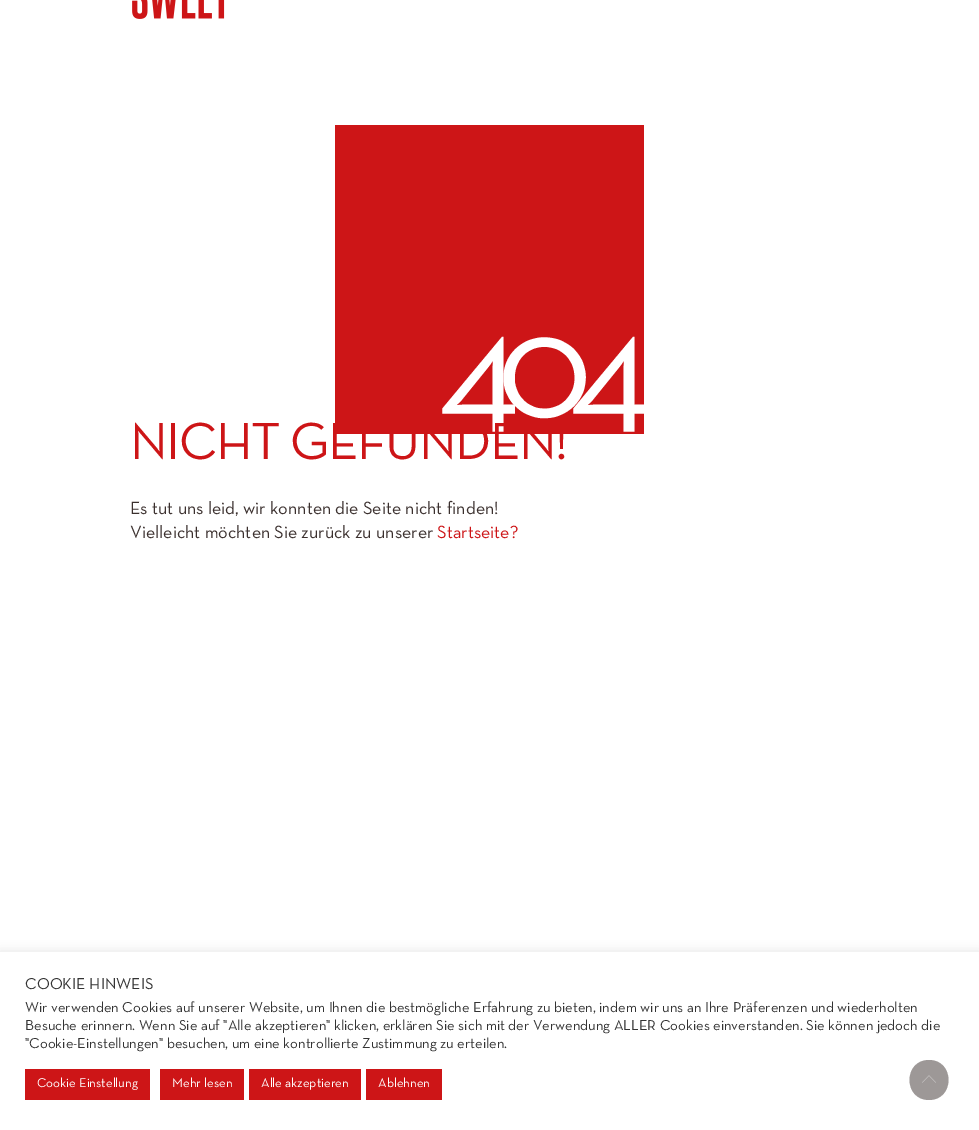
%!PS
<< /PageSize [979 1130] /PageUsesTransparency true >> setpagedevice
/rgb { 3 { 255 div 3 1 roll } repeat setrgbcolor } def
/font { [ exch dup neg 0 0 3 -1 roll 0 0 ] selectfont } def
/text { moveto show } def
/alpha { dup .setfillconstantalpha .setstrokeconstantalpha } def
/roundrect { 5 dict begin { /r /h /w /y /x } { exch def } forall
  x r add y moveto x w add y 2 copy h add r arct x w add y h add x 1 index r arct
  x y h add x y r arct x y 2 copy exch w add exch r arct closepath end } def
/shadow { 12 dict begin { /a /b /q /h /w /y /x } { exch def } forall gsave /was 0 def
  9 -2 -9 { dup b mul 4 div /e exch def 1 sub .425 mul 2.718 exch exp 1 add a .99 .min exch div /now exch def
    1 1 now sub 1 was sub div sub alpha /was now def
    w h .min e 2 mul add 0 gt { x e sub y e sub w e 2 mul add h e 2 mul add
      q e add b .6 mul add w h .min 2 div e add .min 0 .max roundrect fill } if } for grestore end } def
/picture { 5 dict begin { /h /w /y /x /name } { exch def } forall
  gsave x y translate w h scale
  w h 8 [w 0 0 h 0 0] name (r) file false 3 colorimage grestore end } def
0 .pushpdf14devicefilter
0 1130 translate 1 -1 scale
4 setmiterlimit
255 255 255 rgb
0 0 979 1130 rectfill
(img_01.rgb) 132 0 93 19 picture
205 21 23 rgb
335 125 309 309 rectfill
172 171 171 rgb
0 951 979 178 0 5 0.3 shadow
255 255 255 rgb
0 952 979 178 rectfill
205 21 23 rgb
25 1069 125 31 rectfill
160 1069 84 31 rectfill
249 1069 112 31 rectfill
366 1069 76 31 rectfill
157 152 151 rgb
929 1100 moveto -26 0 -26 -40 0 -40 rcurveto 26 0 26 40 0 40 rcurveto closepath fill
(img_02.rgb) 922 1075 14 8 picture
/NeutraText-Regular 156 font
255 255 255 rgb
439 417 moveto -30 0 (4 0 4) ashow
/NeutraText-Regular 53 font
205 21 23 rgb
130 459 moveto -1.5 0 (NICHT GEFUNDEN!) ashow
/NeutraText-Regular 18 font
59 48 46 rgb
(Es tut uns leid, wir konnten die Seite nicht finden!) 130 514 text
(Vielleicht möchten Sie zurück zu unserer) 130 538 text
205 21 23 rgb
(Startseite?) 437 538 text
/NeutraText-Regular 16 font
51 51 51 rgb
(COOKIE HINWEIS) 25 989 text
/NeutraText-Regular 14.67 font
(Wir verwenden Cookies auf unserer Website, um Ihnen die bestmögliche Erfahrung zu bieten, indem wir uns an Ihre Präferenzen und wiederholten) 25 1012 text
(Besuche erinnern. Wenn Sie auf "Alle akzeptieren" klicken, erklären Sie sich mit der Verwendung ALLER Cookies einverstanden. Sie können jedoch die) 25 1030 text
("Cookie-Einstellungen" besuchen, um eine kontrollierte Zustimmung zu erteilen.) 25 1048 text
/NeutraText-Regular 13 font
255 255 255 rgb
(Cookie Einstellung) 37 1087 text
(Mehr lesen) 172 1087 text
(Alle akzeptieren) 261 1087 text
(Ablehnen) 378 1087 text
.poppdf14devicefilter showpage
